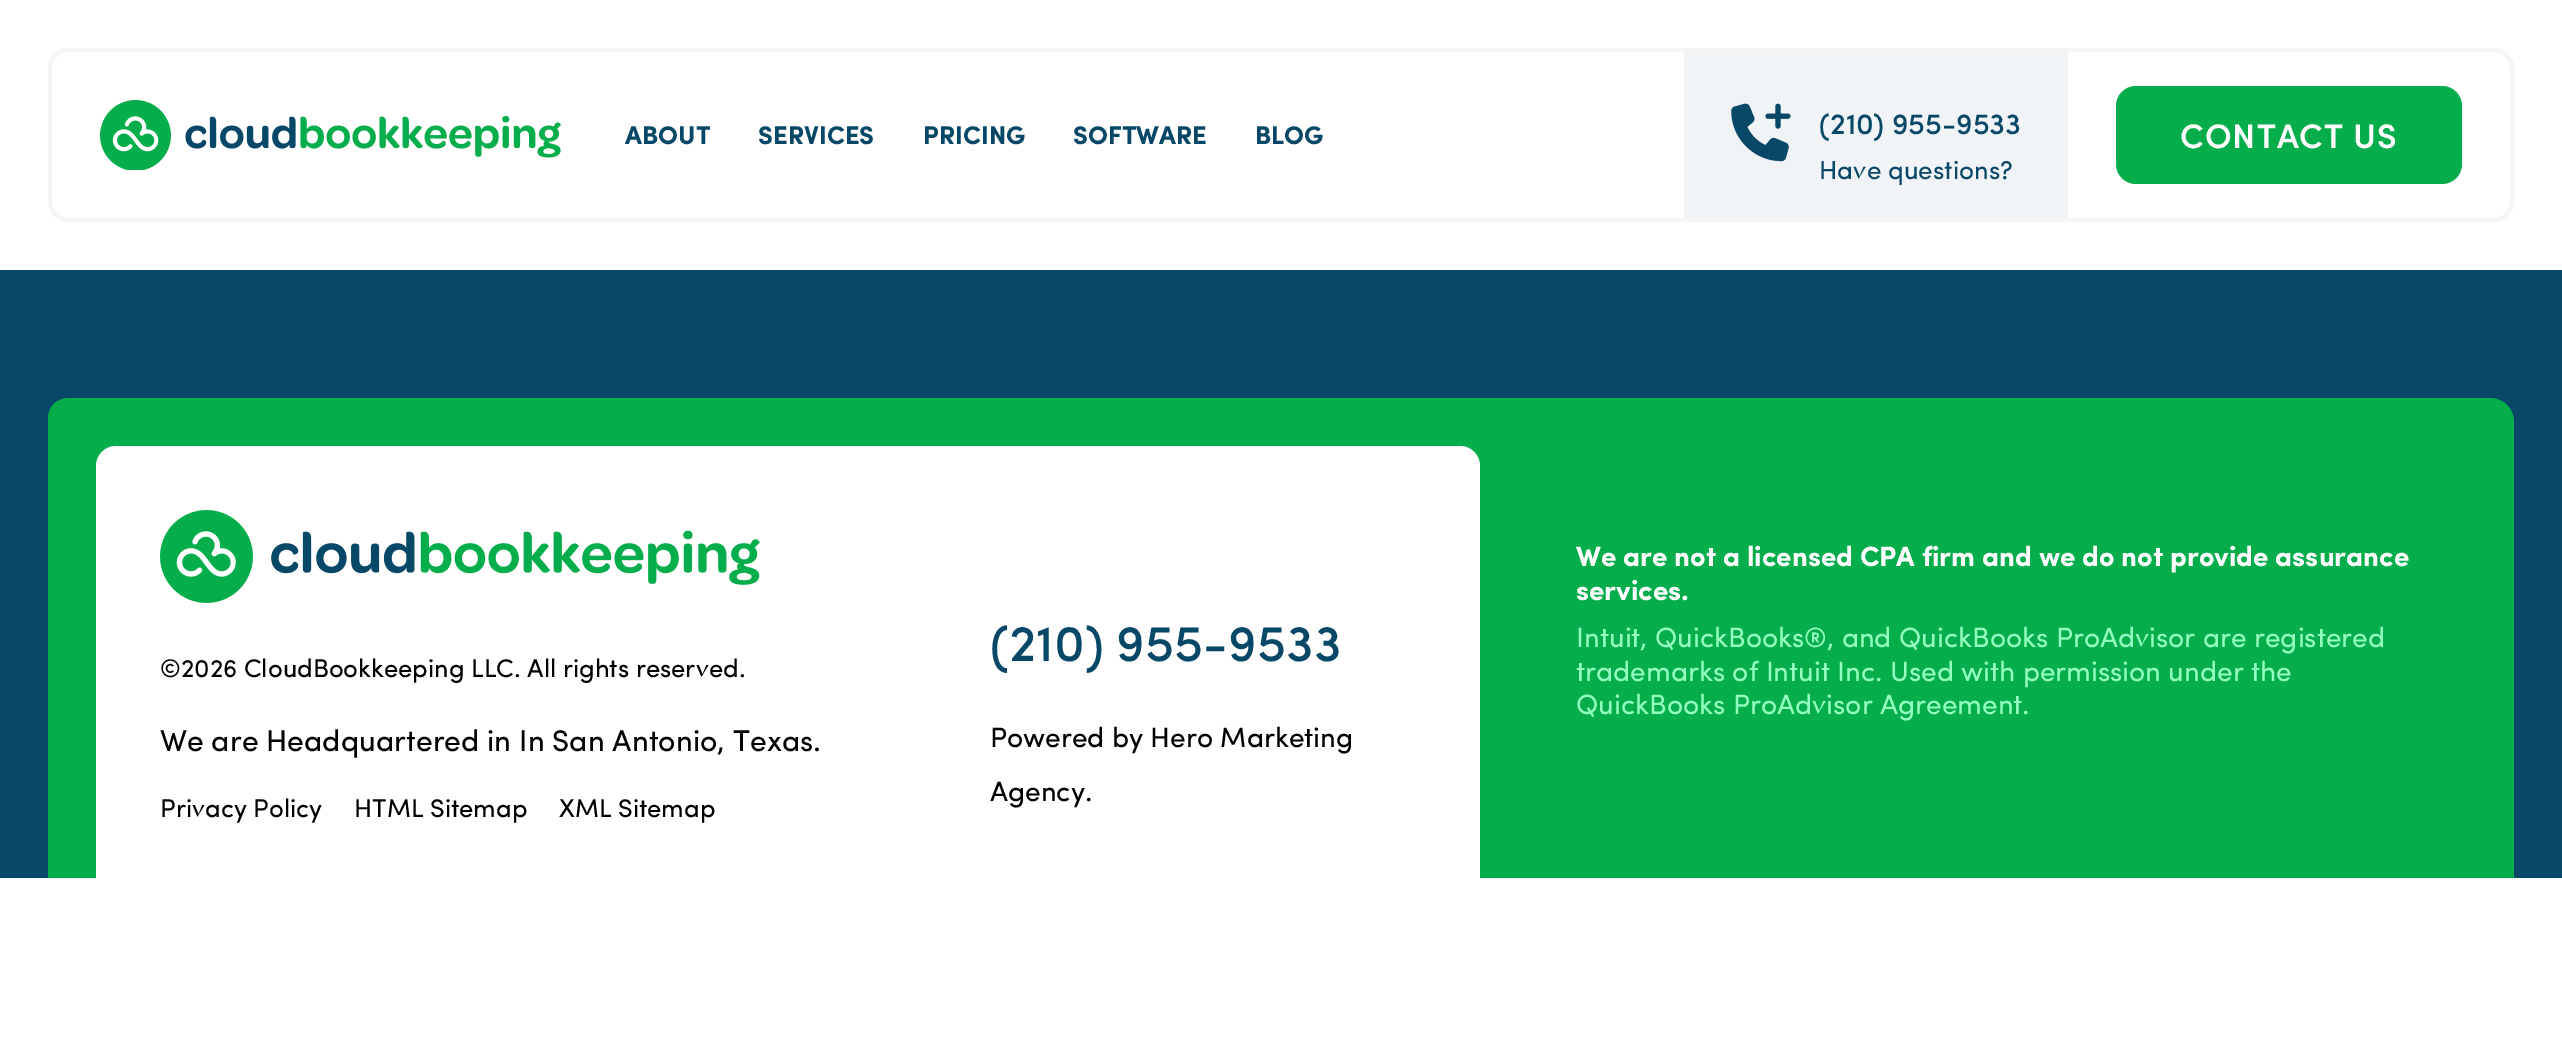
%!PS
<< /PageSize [2562 1040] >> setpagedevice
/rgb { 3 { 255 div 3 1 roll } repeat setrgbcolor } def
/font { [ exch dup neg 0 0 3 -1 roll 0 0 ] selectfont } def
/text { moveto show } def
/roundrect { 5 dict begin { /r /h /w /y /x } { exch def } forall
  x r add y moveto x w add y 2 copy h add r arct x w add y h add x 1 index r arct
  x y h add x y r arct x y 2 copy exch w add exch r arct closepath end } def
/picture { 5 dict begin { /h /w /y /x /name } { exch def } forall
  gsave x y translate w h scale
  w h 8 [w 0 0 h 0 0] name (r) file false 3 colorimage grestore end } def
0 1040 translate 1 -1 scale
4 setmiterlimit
255 255 255 rgb
0 0 2562 1040 rectfill
245 245 245 rgb
4 setlinewidth
50 50 2462 170 18 roundrect stroke
(img_01.rgb) 100 100 461 70 picture
240 244 246 rgb
1684 52 384 166 rectfill
(img_02.rgb) 1731 103 60 59 picture
6 173 75 rgb
2116 86 346 98 20 roundrect fill
7 71 103 rgb
0 270 2562 608 rectfill
6 173 75 rgb
68 398 moveto 1460 0 rlineto 0 480 rlineto -1480 0 rlineto 0 -460 rlineto 0 -11 9 -20 20 -20 rcurveto closepath fill
255 255 255 rgb
116 446 moveto 810 0 rlineto 0 432 rlineto -830 0 rlineto 0 -412 rlineto 0 -11 9 -20 20 -20 rcurveto closepath fill
(img_03.rgb) 160 510 600 93 picture
926 446 moveto 534 0 rlineto 11 0 20 9 20 20 rcurveto 0 412 rlineto -554 0 rlineto closepath fill
6 173 75 rgb
1528 398 moveto 962 0 rlineto 13.5 0 24 10.5 24 24 rcurveto 0 456 rlineto -986 0 rlineto closepath fill
/Sofia-Bold 25.6 font
7 71 103 rgb
(ABOUT) 625 144 text
(SERVICES) 758 144 text
(PRICING) 923 144 text
(SOFTWARE) 1073 144 text
(BLOG) 1255 144 text
/Sofia-Medium 29.5 font
(\(210\) 955-9533) 1819 134 text
/Sofia-Regular 26 font
(Have questions?) 1819 179 text
/Sofia-SemiBold 34 font
255 255 255 rgb
2180 148 moveto 1 0 (CONTACT US) ashow
/Sofia-Regular 25.6 font
0 0 0 rgb
(©2026 CloudBookkeeping LLC. All rights reserved.) 160 677 text
/Sofia-Regular 30 font
(We are Headquartered in In San Antonio, Texas.) 160 751 text
/Sofia-Regular 25.6 font
(Privacy Policy) 160 817 text
(HTML Sitemap) 354 817 text
(XML Sitemap) 559 817 text
/Sofia-Medium 51.25 font
7 71 103 rgb
(\(210\) 955-9533) 990 661 text
/Sofia-Regular 28 font
0 0 0 rgb
(Powered by Hero Marketing) 990 747 text
(Agency.) 990 801 text
/Sofia-Bold 28 font
255 255 255 rgb
(We are not a licensed CPA firm and we do not provide assurance) 1576 566 text
(services.) 1576 600 text
/Sofia-Regular 28 font
147 255 192 rgb
(Intuit, QuickBooks®, and QuickBooks ProAdvisor are registered) 1576 647 text
(trademarks of Intuit Inc. Used with permission under the) 1576 681 text
(QuickBooks ProAdvisor Agreement.) 1576 714 text
showpage
